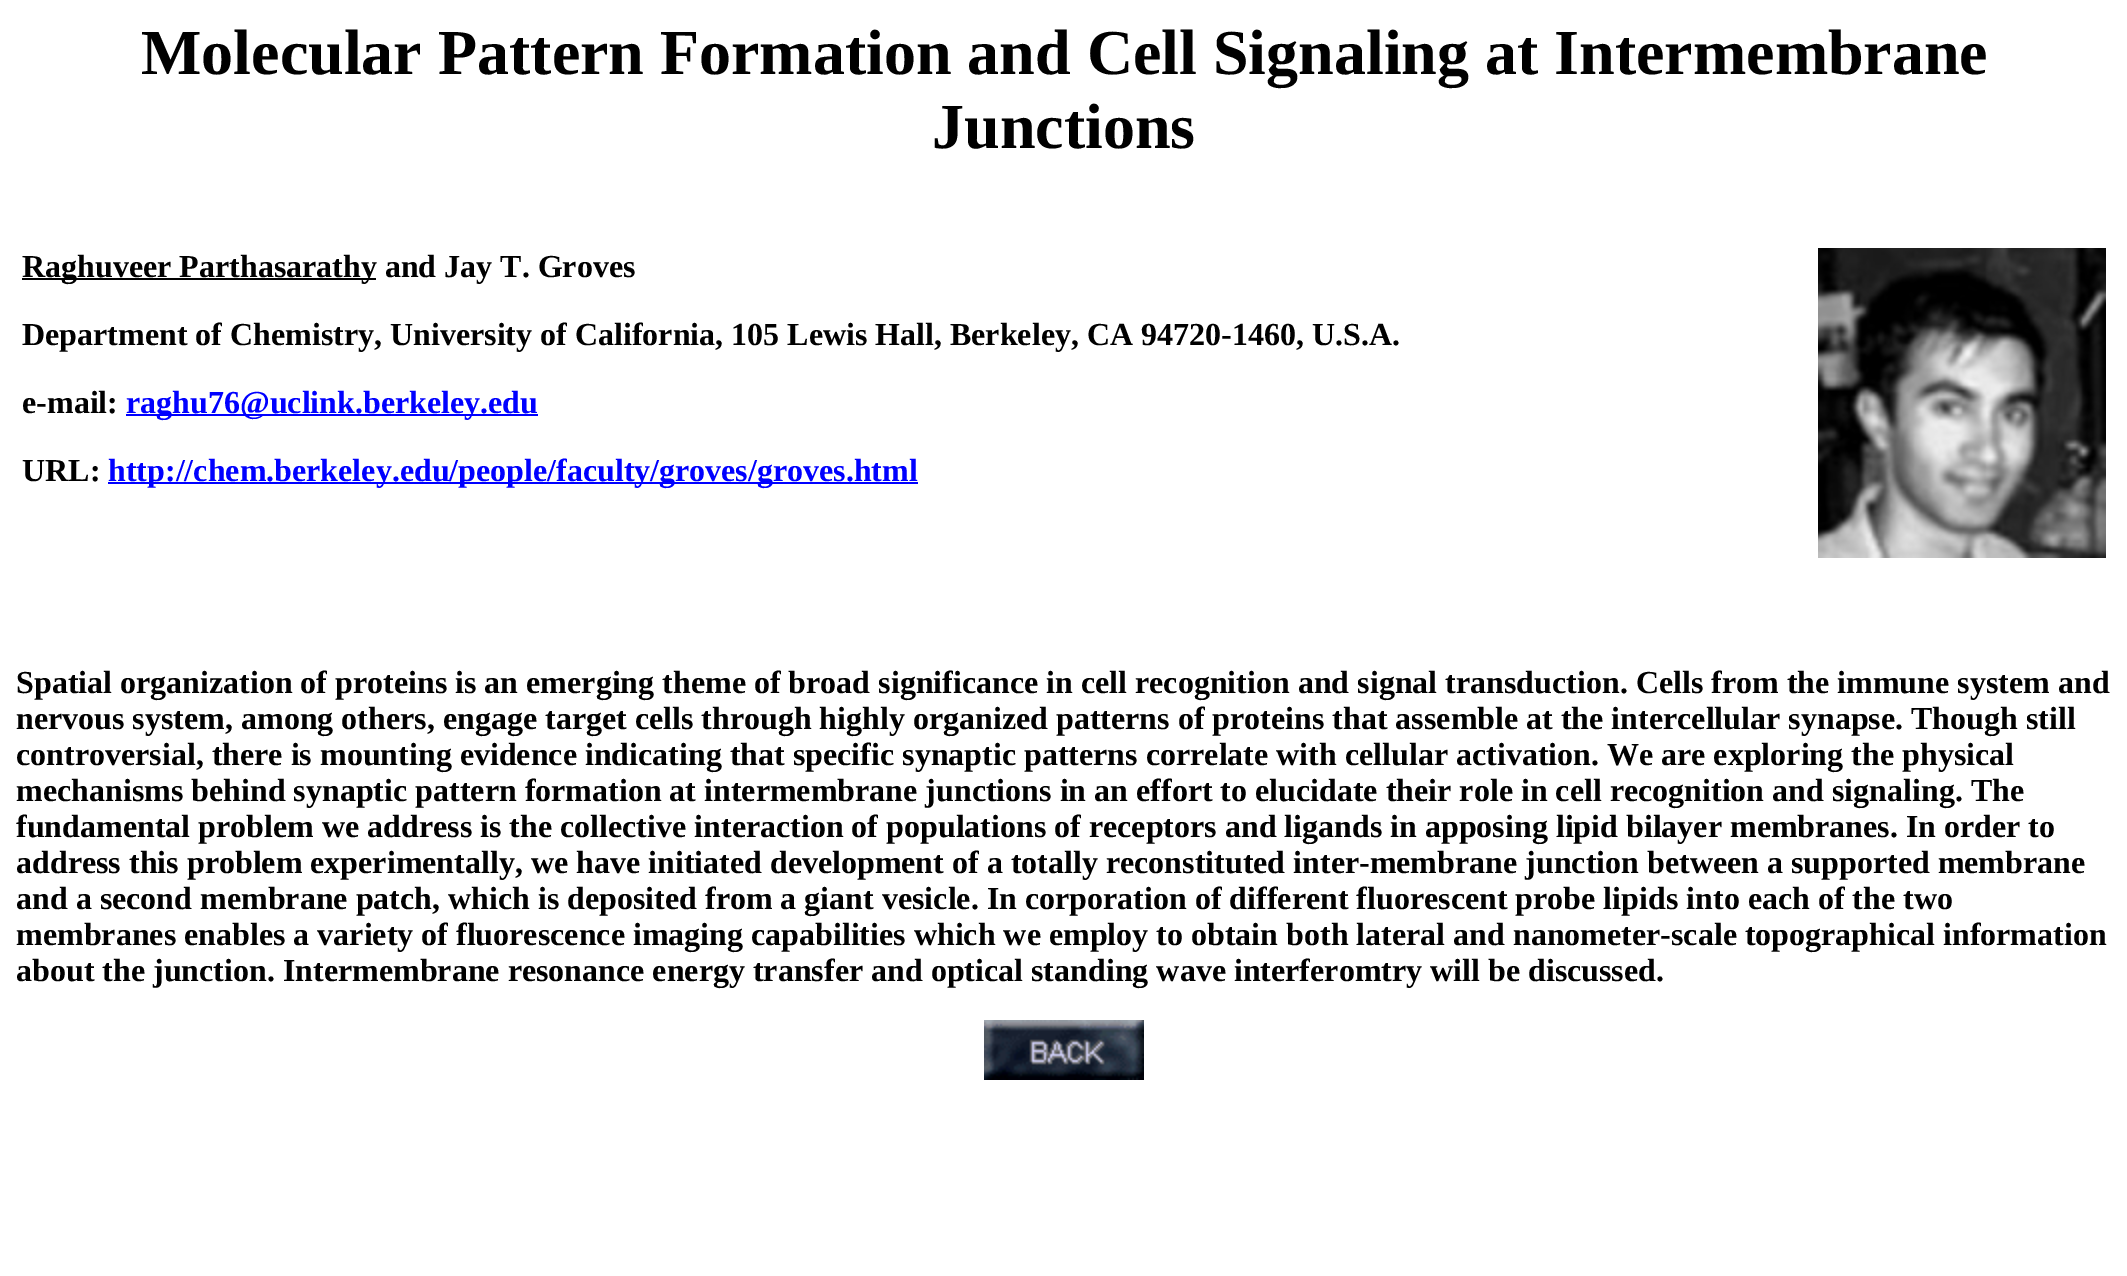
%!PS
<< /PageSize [2127 1276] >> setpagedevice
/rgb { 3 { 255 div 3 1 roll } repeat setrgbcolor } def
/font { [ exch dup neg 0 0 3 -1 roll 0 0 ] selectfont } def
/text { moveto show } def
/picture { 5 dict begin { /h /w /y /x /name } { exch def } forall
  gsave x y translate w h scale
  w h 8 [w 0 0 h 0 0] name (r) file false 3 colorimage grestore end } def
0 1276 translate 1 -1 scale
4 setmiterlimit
255 255 255 rgb
0 0 2127 1276 rectfill
0 0 0 rgb
22 278 354 2 rectfill
0 0 255 rgb
126 414 412 2 rectfill
108 482 810 2 rectfill
(img_01.rgb) 1818 248 288 310 picture
(img_02.rgb) 984 1020 160 60 picture
/LiberationSerif-Bold 64 font
0 0 0 rgb
(Molecular Pattern Formation and Cell Signaling at Intermembrane) 141 74 text
(Junctions) 932 148 text
/LiberationSerif-Bold 32 font
(Raghuveer Parthasarathy and Jay T. Groves) 22 277 text
(Department of Chemistry, University of California, 105 Lewis Hall, Berkeley, CA 94720-1460, U.S.A.) 22 345 text
(e-mail:) 22 413 text
0 0 255 rgb
(raghu76@uclink.berkeley.edu) 126 413 text
0 0 0 rgb
(URL:) 22 481 text
0 0 255 rgb
(http://chem.berkeley.edu/people/faculty/groves/groves.html) 108 481 text
0 0 0 rgb
(Spatial organization of proteins is an emerging theme of broad significance in cell recognition and signal transduction. Cells from the immune system and) 16 693 text
(nervous system, among others, engage target cells through highly organized patterns of proteins that assemble at the intercellular synapse. Though still) 16 729 text
(controversial, there is mounting evidence indicating that specific synaptic patterns correlate with cellular activation. We are exploring the physical) 16 765 text
(mechanisms behind synaptic pattern formation at intermembrane junctions in an effort to elucidate their role in cell recognition and signaling. The) 16 801 text
(fundamental problem we address is the collective interaction of populations of receptors and ligands in apposing lipid bilayer membranes. In order to) 16 837 text
(address this problem experimentally, we have initiated development of a totally reconstituted inter-membrane junction between a supported membrane) 16 873 text
(and a second membrane patch, which is deposited from a giant vesicle. In corporation of different fluorescent probe lipids into each of the two) 16 909 text
(membranes enables a variety of fluorescence imaging capabilities which we employ to obtain both lateral and nanometer-scale topographical information) 16 945 text
(about the junction. Intermembrane resonance energy transfer and optical standing wave interferomtry will be discussed.) 16 981 text
showpage
